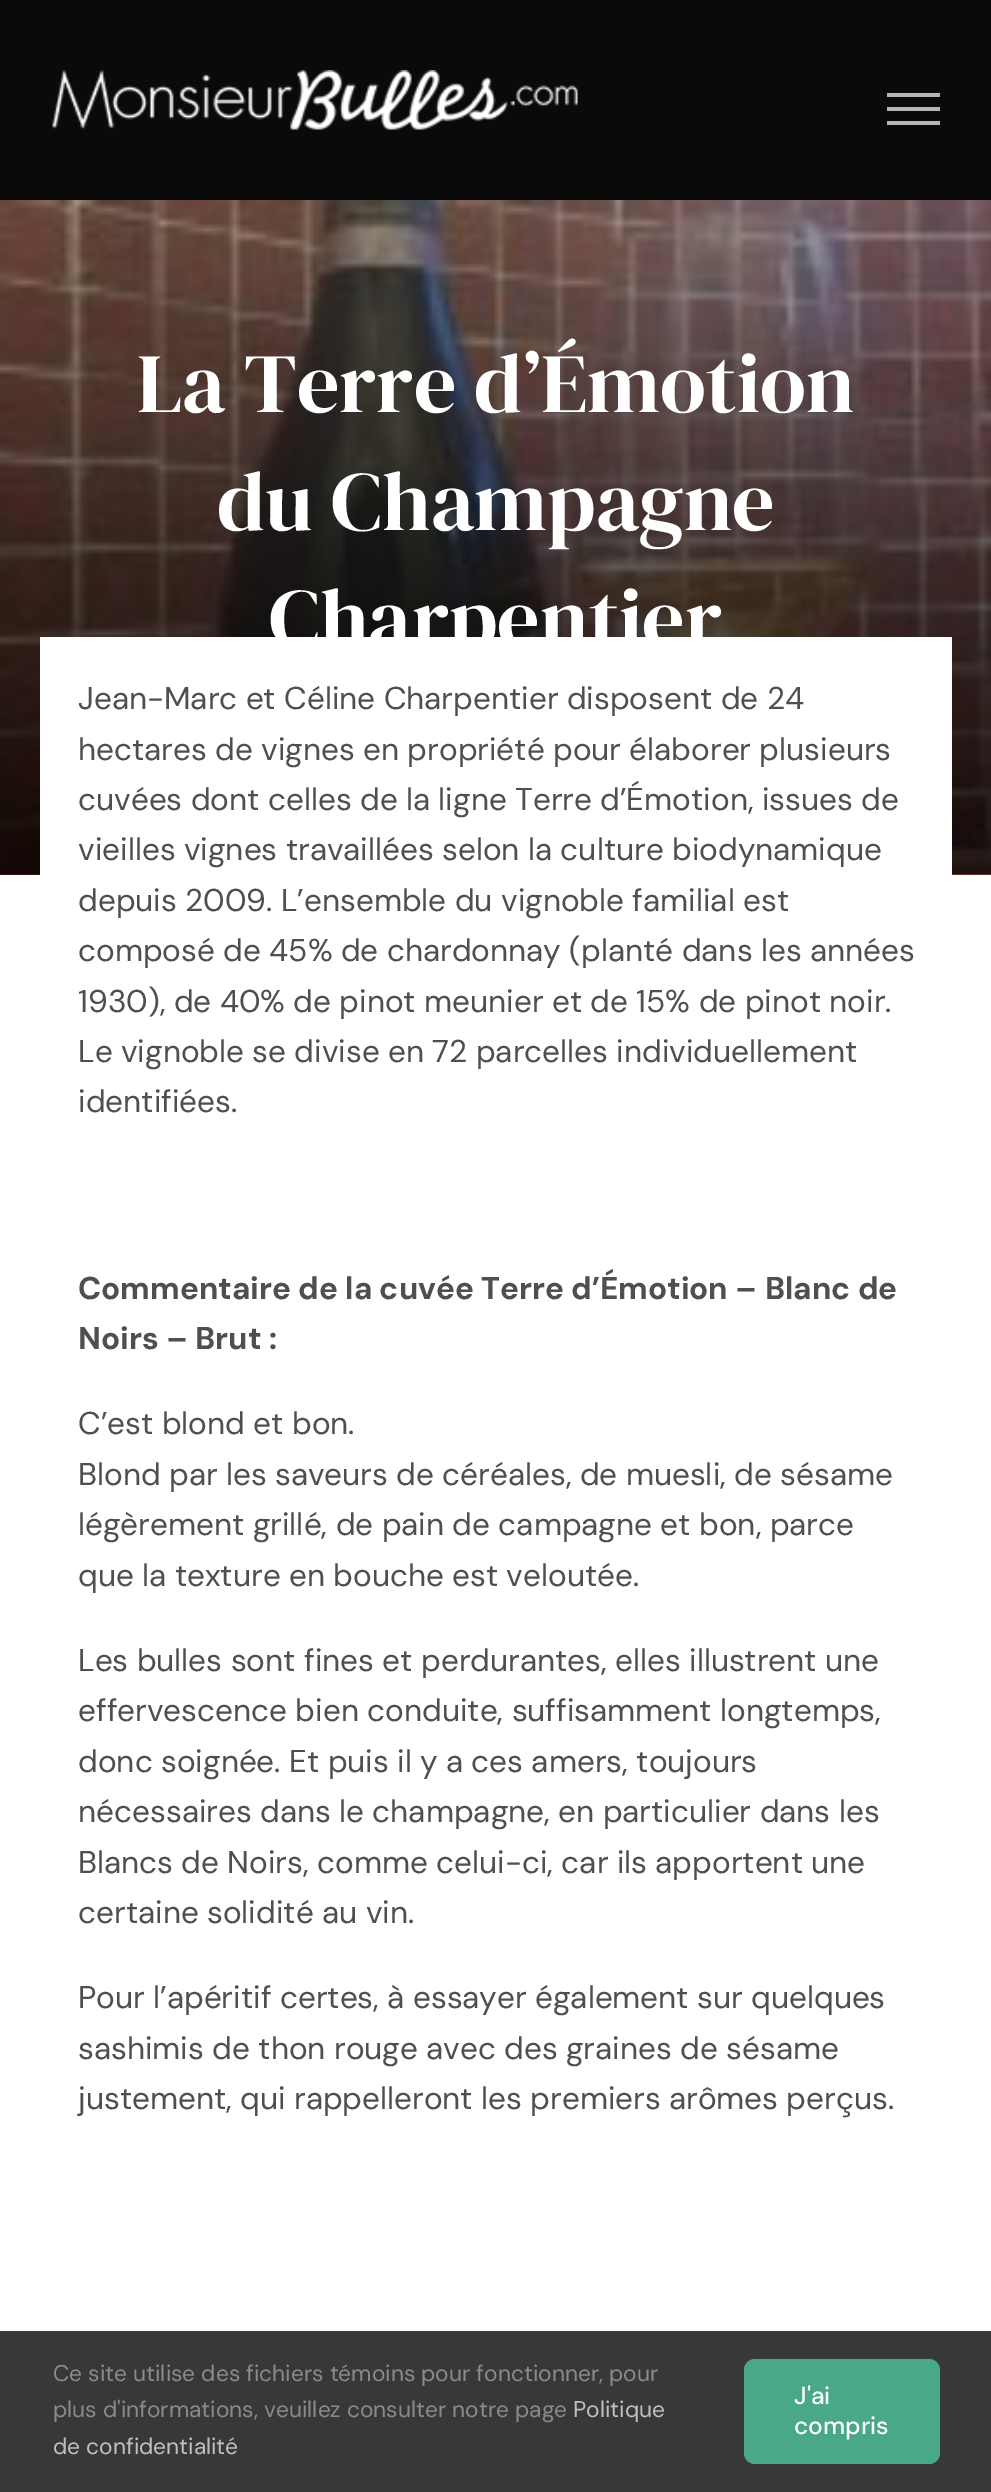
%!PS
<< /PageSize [991 2492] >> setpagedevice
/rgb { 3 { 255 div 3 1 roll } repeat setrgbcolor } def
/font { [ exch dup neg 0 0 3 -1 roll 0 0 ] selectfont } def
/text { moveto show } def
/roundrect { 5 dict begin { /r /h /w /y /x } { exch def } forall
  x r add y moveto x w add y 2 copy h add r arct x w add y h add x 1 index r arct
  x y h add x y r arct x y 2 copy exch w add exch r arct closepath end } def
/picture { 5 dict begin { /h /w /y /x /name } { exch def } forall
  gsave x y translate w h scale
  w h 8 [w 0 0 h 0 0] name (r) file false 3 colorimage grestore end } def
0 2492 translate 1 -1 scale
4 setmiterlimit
255 255 255 rgb
0 0 991 2492 rectfill
10 10 10 rgb
0 0 991 200 rectfill
(img_01.rgb) 52 70 526 60 picture
181 181 181 rgb
887 93 53 4 rectfill
887 107 53 4 rectfill
887 121 53 4 rectfill
(img_02.rgb) 0 200 991 675 picture
255 255 255 rgb
40 637 912 238 rectfill
54 56 57 rgb
0 2331 991 161 rectfill
73 169 135 rgb
744 2359 196 105 11 roundrect fill
/DMSerifDisplay-Regular 84 font
255 255 255 rgb
(La Terre d’Émotion) 137 412 text
(du Champagne) 217 530 text
(Charpentier) 269 647 text
/DMSans-Regular 31.5 font
79 79 79 rgb
(Jean-Marc et Céline Charpentier disposent de 24) 78 709 text
(hectares de vignes en propriété pour élaborer plusieurs) 78 760 text
(cuvées dont celles de la ligne Terre d’Émotion, issues de) 78 810 text
(vieilles vignes travaillées selon la culture biodynamique) 78 860 text
(depuis 2009. L’ensemble du vignoble familial est) 78 911 text
(composé de 45% de chardonnay \(planté dans les années) 78 961 text
(1930\), de 40% de pinot meunier et de 15% de pinot noir.) 78 1012 text
(Le vignoble se divise en 72 parcelles individuellement) 78 1062 text
(identifiées.) 78 1112 text
/DMSans-Bold 31.5 font
(Commentaire de la cuvée Terre d’Émotion – Blanc de) 78 1299 text
(Noirs – Brut :) 78 1349 text
/DMSans-Regular 31.5 font
(C’est blond et bon.) 78 1434 text
(Blond par les saveurs de céréales, de muesli, de sésame) 78 1485 text
(légèrement grillé, de pain de campagne et bon, parce) 78 1535 text
(que la texture en bouche est veloutée.) 78 1586 text
(Les bulles sont fines et perdurantes, elles illustrent une) 78 1671 text
(effervescence bien conduite, suffisamment longtemps,) 78 1721 text
(donc soignée. Et puis il y a ces amers, toujours) 78 1772 text
(nécessaires dans le champagne, en particulier dans les) 78 1822 text
(Blancs de Noirs, comme celui-ci, car ils apportent une) 78 1873 text
(certaine solidité au vin.) 78 1923 text
(Pour l’apéritif certes, à essayer également sur quelques) 78 2008 text
(sashimis de thon rouge avec des graines de sésame) 78 2059 text
(justement, qui rappelleront les premiers arômes perçus.) 78 2109 text
/DMSans-Regular 22.75 font
140 137 137 rgb
(Ce site utilise des fichiers témoins pour fonctionner, pour) 53 2381 text
(plus d'informations, veuillez consulter notre page) 53 2417 text
191 191 191 rgb
(Politique) 573 2417 text
(de confidentialité) 53 2454 text
/DMSans-Medium 24.5 font
255 255 255 rgb
(J'ai) 794 2404 text
(compris) 794 2434 text
showpage
